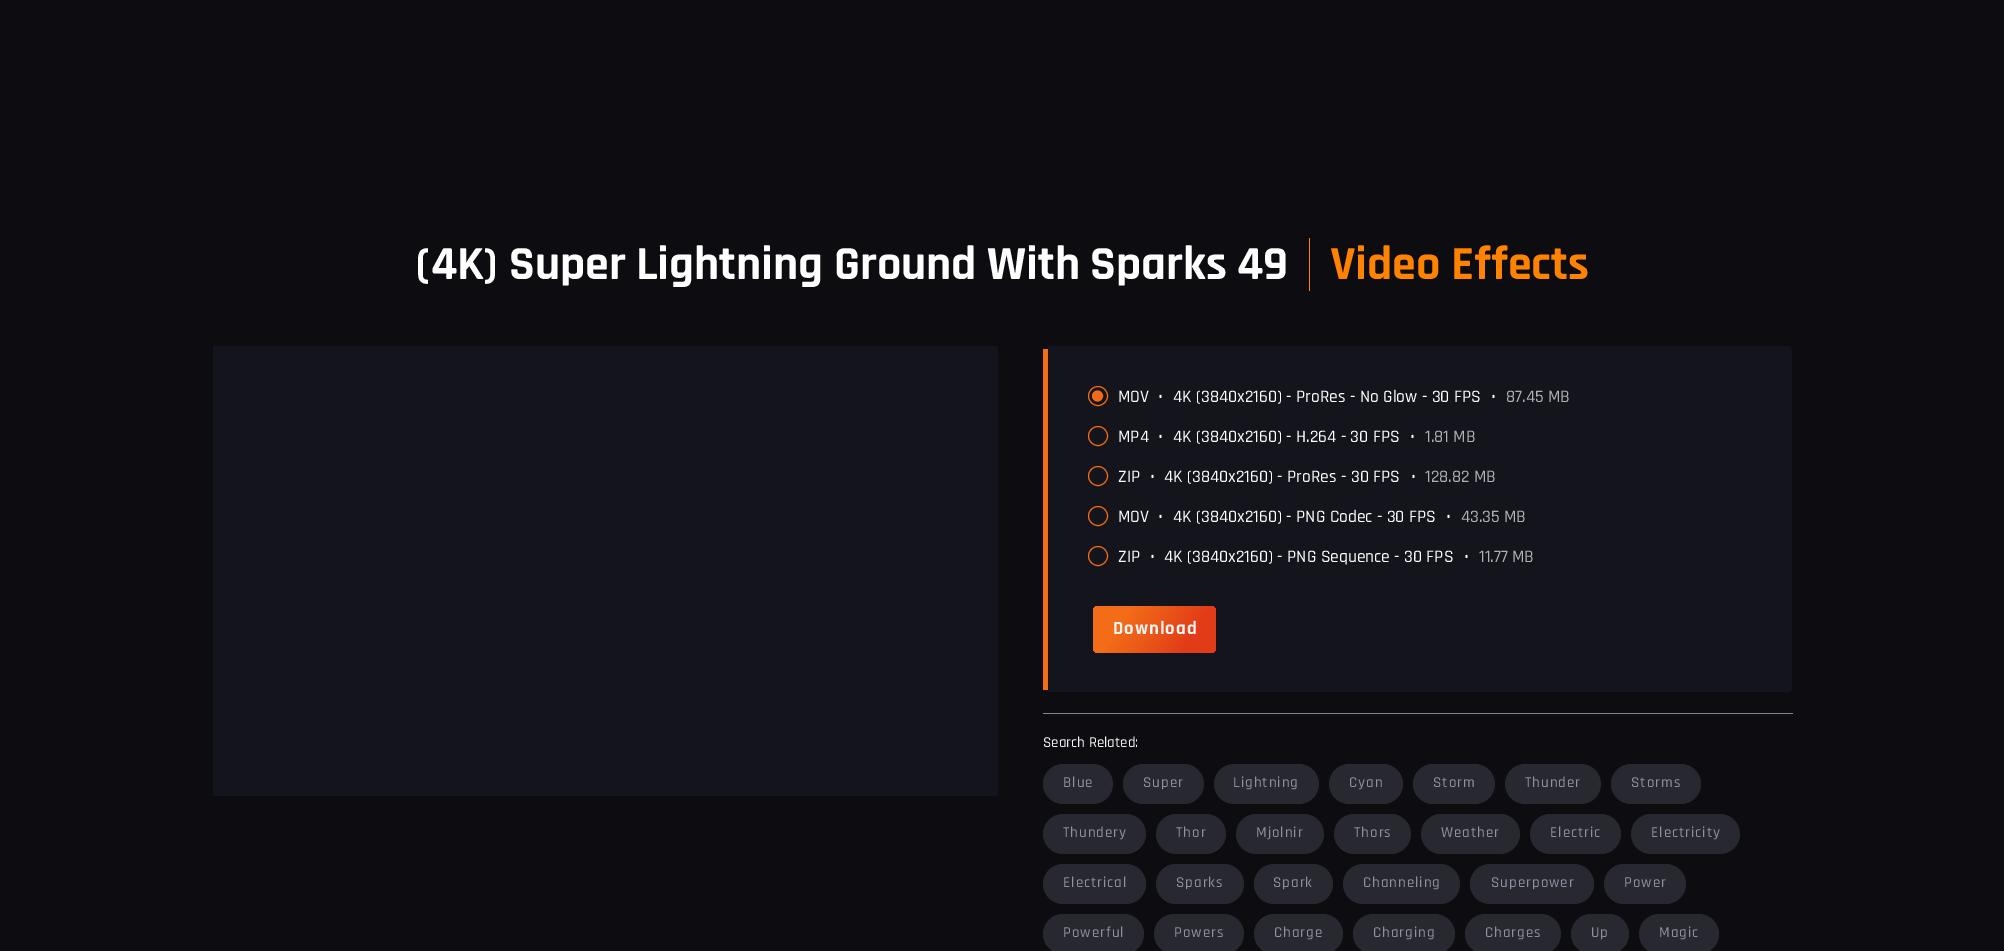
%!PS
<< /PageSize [2004 951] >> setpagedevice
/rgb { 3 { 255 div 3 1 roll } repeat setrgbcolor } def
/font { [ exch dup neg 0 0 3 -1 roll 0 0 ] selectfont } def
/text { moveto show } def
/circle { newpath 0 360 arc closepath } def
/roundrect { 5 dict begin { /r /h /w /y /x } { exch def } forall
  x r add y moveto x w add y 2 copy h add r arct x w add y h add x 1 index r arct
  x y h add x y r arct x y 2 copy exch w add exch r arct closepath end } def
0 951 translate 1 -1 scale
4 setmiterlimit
12 12 17 rgb
0 0 2004 951 rectfill
255 130 0 rgb
1309 238 1 53 rectfill
20 21 28 rgb
213 346 785 450 rectfill
1048 346 moveto 740 0 rlineto 2 0 4 2 4 5 rcurveto 0 337 rlineto 0 2 -2 4 -4 4 rcurveto -740 0 rlineto closepath fill
243 108 23 rgb
1043 349 5 341 rectfill
243 107 22 rgb
1098 396 9.5 circle stroke
1097.5 396 5 circle gsave fill grestore
stroke
1098 436 9.5 circle stroke
1098 476 9.5 circle stroke
1098 516 9.5 circle stroke
1098 556 9.5 circle stroke
gsave 1093 606 123 47 5 roundrect clip newpath
<< /ShadingType 2 /ColorSpace /DeviceRGB /Coords [1137 538 1419 721] /Extend [true true] /Function << /FunctionType 3 /Domain [0 1] /Functions [<< /FunctionType 2 /Domain [0 1] /C0 [0.953 0.424 0.09] /C1 [0.953 0.424 0.09] /N 1 >> << /FunctionType 2 /Domain [0 1] /C0 [0.953 0.424 0.09] /C1 [0.886 0.231 0.09] /N 1 >> << /FunctionType 2 /Domain [0 1] /C0 [0.886 0.231 0.09] /C1 [0.886 0.231 0.09] /N 1 >> << /FunctionType 2 /Domain [0 1] /C0 [0.886 0.231 0.09] /C1 [0.953 0.557 0.09] /N 1 >> << /FunctionType 2 /Domain [0 1] /C0 [0.953 0.557 0.09] /C1 [0.953 0.557 0.09] /N 1 >> << /FunctionType 2 /Domain [0 1] /C0 [0.953 0.557 0.09] /C1 [0.886 0.424 0.09] /N 1 >>] /Bounds [0.1 0.3 0.45 0.55 0.7] /Encode [0 1 0 1 0 1 0 1 0 1 0 1] >> >> shfill grestore
133 133 133 rgb
1043 713 750 1 rectfill
39 40 48 rgb
1043 764 70 40 20 roundrect fill
1123 764 81 40 20 roundrect fill
1214 764 105 40 20 roundrect fill
1329 764 74 40 20 roundrect fill
1413 764 82 40 20 roundrect fill
1505 764 96 40 20 roundrect fill
1611 764 90 40 20 roundrect fill
1043 814 103 40 20 roundrect fill
1156 814 70 40 20 roundrect fill
1236 814 88 40 20 roundrect fill
1334 814 77 40 20 roundrect fill
1421 814 99 40 20 roundrect fill
1530 814 91 40 20 roundrect fill
1631 814 109 40 20 roundrect fill
1043 864 103 40 20 roundrect fill
1156 864 88 40 20 roundrect fill
1254 864 79 40 20 roundrect fill
1343 864 117 40 20 roundrect fill
1470 864 124 40 20 roundrect fill
1604 864 82 40 20 roundrect fill
1043 914 101 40 20 roundrect fill
1154 914 90 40 20 roundrect fill
1254 914 89 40 20 roundrect fill
1353 914 102 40 20 roundrect fill
1465 914 96 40 20 roundrect fill
1571 914 58 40 20 roundrect fill
1639 914 80 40 20 roundrect fill
/Rajdhani-Bold 48 font
255 255 255 rgb
(\(4K\) Super Lightning Ground With Sparks 49) 416 279 text
255 130 0 rgb
(Video Effects) 1330 279 text
/Rajdhani-Medium 17.5 font
255 255 255 rgb
(MOV) 1118 402 text
(•) 1158 402 text
(4K \(3840x2160\) - ProRes - No Glow - 30 FPS) 1173 402 text
(•) 1491 402 text
176 176 181 rgb
(87.45 MB) 1506 402 text
255 255 255 rgb
(MP4) 1118 442 text
(•) 1158 442 text
(4K \(3840x2160\) - H.264 - 30 FPS) 1173 442 text
(•) 1410 442 text
176 176 181 rgb
(1.81 MB) 1425 442 text
255 255 255 rgb
(ZIP) 1118 482 text
(•) 1150 482 text
(4K \(3840x2160\) - ProRes - 30 FPS) 1164 482 text
(•) 1411 482 text
176 176 181 rgb
(128.82 MB) 1425 482 text
255 255 255 rgb
(MOV) 1118 522 text
(•) 1158 522 text
(4K \(3840x2160\) - PNG Codec - 30 FPS) 1173 522 text
(•) 1446 522 text
176 176 181 rgb
(43.35 MB) 1461 522 text
255 255 255 rgb
(ZIP) 1118 562 text
(•) 1150 562 text
(4K \(3840x2160\) - PNG Sequence - 30 FPS) 1164 562 text
(•) 1464 562 text
176 176 181 rgb
(11.77 MB) 1479 562 text
/Rajdhani-Bold 18.75 font
244 244 244 rgb
1113 634 moveto 1 0 (Download) ashow
/Rajdhani-Medium 15 font
(Search Related:) 1043 747 text
142 145 159 rgb
1063 787 moveto 1 0 (Blue) ashow
1143 787 moveto 1 0 (Super) ashow
1233 787 moveto 1 0 (Lightning) ashow
1349 787 moveto 1 0 (Cyan) ashow
1433 787 moveto 1 0 (Storm) ashow
1525 787 moveto 1 0 (Thunder) ashow
1631 787 moveto 1 0 (Storms) ashow
1063 837 moveto 1 0 (Thundery) ashow
1176 837 moveto 1 0 (Thor) ashow
1256 837 moveto 1 0 (Mjolnir) ashow
1354 837 moveto 1 0 (Thors) ashow
1441 837 moveto 1 0 (Weather) ashow
1550 837 moveto 1 0 (Electric) ashow
1651 837 moveto 1 0 (Electricity) ashow
1063 887 moveto 1 0 (Electrical) ashow
1176 887 moveto 1 0 (Sparks) ashow
1273 887 moveto 1 0 (Spark) ashow
1363 887 moveto 1 0 (Channeling) ashow
1491 887 moveto 1 0 (Superpower) ashow
1624 887 moveto 1 0 (Power) ashow
1063 937 moveto 1 0 (Powerful) ashow
1174 937 moveto 1 0 (Powers) ashow
1274 937 moveto 1 0 (Charge) ashow
1373 937 moveto 1 0 (Charging) ashow
1485 937 moveto 1 0 (Charges) ashow
1591 937 moveto 1 0 (Up) ashow
1659 937 moveto 1 0 (Magic) ashow
showpage
